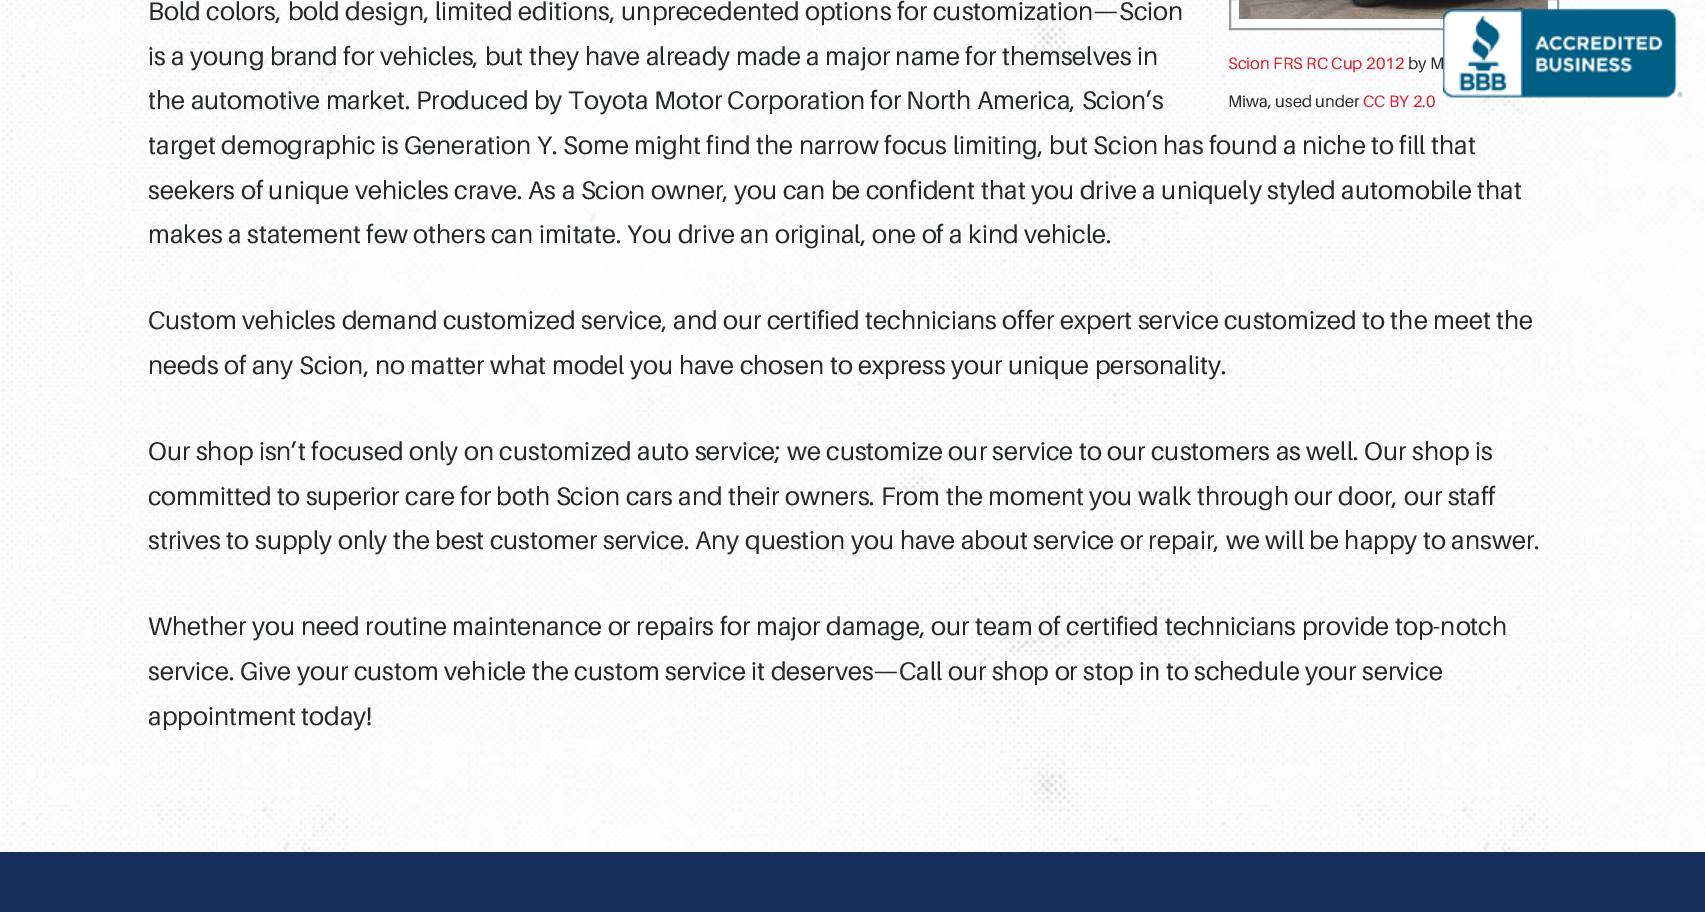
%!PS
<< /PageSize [1705 912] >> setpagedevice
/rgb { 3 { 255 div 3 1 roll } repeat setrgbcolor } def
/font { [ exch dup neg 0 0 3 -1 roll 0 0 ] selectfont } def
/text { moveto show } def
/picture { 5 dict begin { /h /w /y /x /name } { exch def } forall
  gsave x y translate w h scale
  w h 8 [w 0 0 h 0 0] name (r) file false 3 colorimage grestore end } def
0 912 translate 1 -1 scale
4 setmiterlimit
255 255 255 rgb
0 0 1705 912 rectfill
(img_01.rgb) 0 0 1705 852 picture
1230 -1 moveto 328 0 rlineto 0 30 rlineto -328 0 rlineto closepath gsave fill grestore
153 153 153 rgb
2 setlinewidth
stroke
(img_02.rgb) 1239 0 309 19 picture
20 47 90 rgb
0 852 1705 60 rectfill
(img_03.rgb) 1443 8 240 90 picture
/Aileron-Regular 25.5 font
37 40 41 rgb
(Bold colors, bold design, limited editions, unprecedented options for customization—Scion) 148 20 text
(is a young brand for vehicles, but they have already made a major name for themselves in) 148 65 text
gsave
149 0 1410 780 rectclip
(the automotive market. Produced by Toyota Motor Corporation for North America, Scion’s) 148 109 text
(target demographic is Generation Y. Some might find the narrow focus limiting, but Scion has found a niche to fill that) 148 154 text
(seekers of unique vehicles crave. As a Scion owner, you can be confident that you drive a uniquely styled automobile that) 148 199 text
grestore
(makes a statement few others can imitate. You drive an original, one of a kind vehicle.) 148 243 text
/Aileron-Regular 16.5 font
221 28 39 rgb
(Scion FRS RC Cup 2012) 1228 69 text
37 40 41 rgb
(by M) 1408 69 text
(Miwa, used under) 1228 107 text
221 28 39 rgb
(CC BY 2.0) 1363 107 text
/Aileron-Regular 25.5 font
37 40 41 rgb
(Custom vehicles demand customized service, and our certified technicians offer expert service customized to the meet the) 148 329 text
(needs of any Scion, no matter what model you have chosen to express your unique personality.) 148 374 text
(Our shop isn’t focused only on customized auto service; we customize our service to our customers as well. Our shop is) 148 460 text
gsave
149 0 1410 780 rectclip
(committed to superior care for both Scion cars and their owners. From the moment you walk through our door, our staff) 148 505 text
(strives to supply only the best customer service. Any question you have about service or repair, we will be happy to answer.) 148 549 text
grestore
(Whether you need routine maintenance or repairs for major damage, our team of certified technicians provide top-notch) 148 635 text
gsave
149 0 1410 780 rectclip
(service. Give your custom vehicle the custom service it deserves—Call our shop or stop in to schedule your service) 148 680 text
(appointment today!) 148 725 text
grestore
showpage
